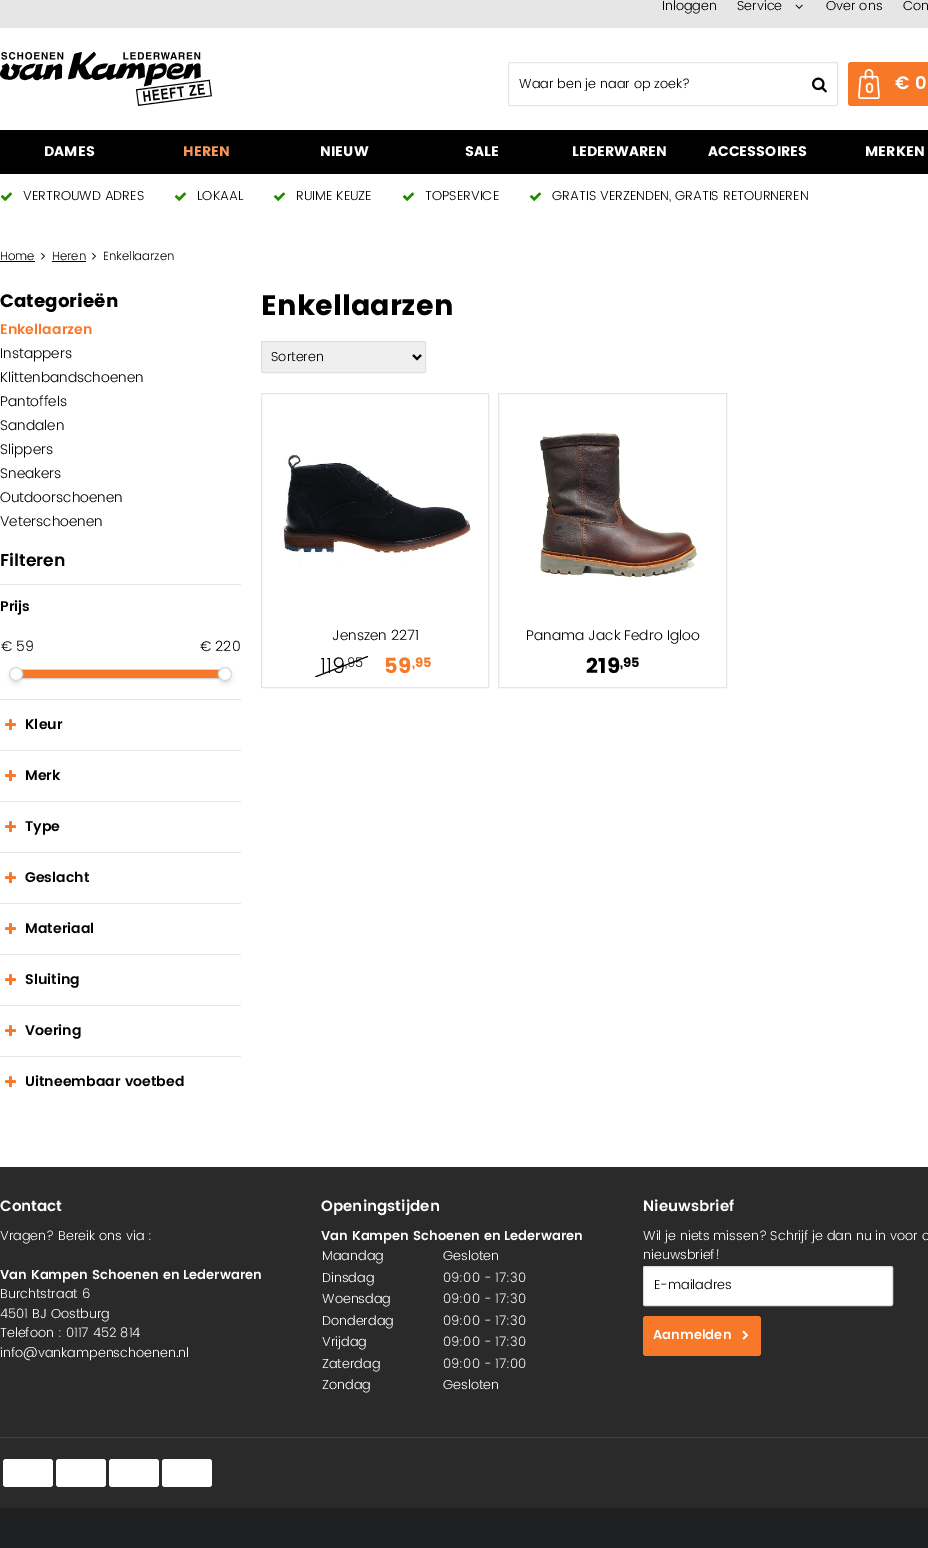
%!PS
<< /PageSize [928 1548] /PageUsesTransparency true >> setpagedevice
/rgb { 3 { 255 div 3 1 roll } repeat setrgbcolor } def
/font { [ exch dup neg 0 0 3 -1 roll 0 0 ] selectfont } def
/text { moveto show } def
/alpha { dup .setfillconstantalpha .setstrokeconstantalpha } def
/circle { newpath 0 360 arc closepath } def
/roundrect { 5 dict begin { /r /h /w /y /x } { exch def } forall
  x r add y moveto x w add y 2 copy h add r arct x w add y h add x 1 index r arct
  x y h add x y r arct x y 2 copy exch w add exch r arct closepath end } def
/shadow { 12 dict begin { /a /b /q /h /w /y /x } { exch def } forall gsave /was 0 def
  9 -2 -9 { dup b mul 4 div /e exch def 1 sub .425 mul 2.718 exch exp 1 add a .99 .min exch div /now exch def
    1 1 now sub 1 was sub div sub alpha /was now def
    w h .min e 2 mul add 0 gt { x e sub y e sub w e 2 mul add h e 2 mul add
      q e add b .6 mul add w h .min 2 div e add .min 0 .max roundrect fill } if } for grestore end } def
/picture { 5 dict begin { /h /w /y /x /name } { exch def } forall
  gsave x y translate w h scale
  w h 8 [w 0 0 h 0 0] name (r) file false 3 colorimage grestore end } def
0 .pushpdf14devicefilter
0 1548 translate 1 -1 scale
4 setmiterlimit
255 255 255 rgb
0 0 928 1548 rectfill
230 230 230 rgb
0 0 928 28 rectfill
(img_01.rgb) 795 4 8 5 picture
(img_02.rgb) 0 52 212 54 picture
508.5 62.5 329 43 1.5 roundrect stroke
(img_03.rgb) 812 77 15 16 picture
246 120 40 rgb
851 62 moveto 77 0 rlineto 0 44 rlineto -77 0 rlineto -1.5 0 -3 -1.5 -3 -3 rcurveto 0 -38 rlineto 0 -1.5 1.5 -3 3 -3 rcurveto closepath fill
(img_04.rgb) 858 69 22 30 picture
0 0 0 rgb
0 130 928 44 rectfill
(img_05.rgb) 0 192 13 9 picture
(img_05.rgb) 174 192 13 9 picture
(img_05.rgb) 273 192 13 9 picture
(img_05.rgb) 402 192 13 9 picture
(img_05.rgb) 529 192 13 9 picture
0 261 35 1 rectfill
(img_06.rgb) 41 252 4 8 picture
52 261 34 1 rectfill
(img_06.rgb) 92 252 4 8 picture
230 230 230 rgb
0 584 241 1 rectfill
211 211 211 rgb
15.5 669.5 210 9 rectstroke
246 120 40 rgb
16 670 209 8 rectfill
187 187 187 rgb
12 673 8 8 4 3 1 shadow
255 255 255 rgb
16 674 6.5 circle gsave fill grestore
217 217 217 rgb
stroke
187 187 187 rgb
221 673 8 8 4 3 1 shadow
255 255 255 rgb
225 674 6.5 circle gsave fill grestore
217 217 217 rgb
stroke
230 230 230 rgb
0 699 241 1 rectfill
(img_07.rgb) 5 719 11 12 picture
0 750 241 1 rectfill
(img_07.rgb) 5 770 11 12 picture
0 801 241 1 rectfill
(img_07.rgb) 5 821 11 12 picture
0 852 241 1 rectfill
(img_07.rgb) 5 872 11 12 picture
0 903 241 1 rectfill
(img_07.rgb) 5 923 11 12 picture
0 954 241 1 rectfill
(img_07.rgb) 5 974 11 12 picture
0 1005 241 1 rectfill
(img_07.rgb) 5 1025 11 12 picture
0 1056 241 1 rectfill
(img_07.rgb) 5 1076 11 12 picture
239 239 239 rgb
261.5 341.5 164 31 1.5 roundrect gsave fill grestore
223 223 223 rgb
stroke
0 0 0 rgb
2 setlinewidth
413 355 moveto 4 4 rlineto 4 -4 rlineto stroke
230 230 230 rgb
1 setlinewidth
261.5 393.5 227 294 rectstroke
(img_08.rgb) 283 454 188 110 picture
gsave
315 656 53 21 rectclip
0 0 0 rgb
315 677 moveto 54 -21 rlineto stroke
grestore
498.5 393.5 228 294 rectstroke
(img_09.rgb) 540 431 159 149 picture
42 42 42 rgb
0 1167 928 341 rectfill
255 255 255 rgb
643.5 1266.5 249 39 1.5 roundrect gsave fill grestore
223 223 223 rgb
stroke
246 120 40 rgb
643 1316 118 40 3 roundrect fill
(img_10.rgb) 742 1330 7 10 picture
64 64 64 rgb
0 1437 928 1 rectfill
255 255 255 rgb
3 1459 50 28 3 roundrect fill
56 1459 50 28 3 roundrect fill
109 1459 50 28 3 roundrect fill
162 1459 50 28 3 roundrect fill
31 32 34 rgb
0 1508 928 40 rectfill
/Poppins-Light 13 font
0 0 0 rgb
(Inloggen) 662 10 text
(Service) 737 10 text
(Over ons) 826 10 text
(Con) 903 10 text
gsave
519 78 228 13 rectclip
(Waar ben je naar op zoek?) 519 88 text
grestore
/Poppins-SemiBold 14 font
255 255 255 rgb
(0) 865 93 text
/Poppins-SemiBold 18 font
(€ 0) 895 89 text
/Poppins-Bold 14 font
(DAMES) 44 156 text
248 151 89 rgb
(HEREN) 183 156 text
255 255 255 rgb
(NIEUW) 320 156 text
(SALE) 465 156 text
(LEDERWAREN) 572 156 text
(ACCESSOIRES) 708 156 text
(MERKEN) 865 156 text
/Poppins-Light 13 font
0 0 0 rgb
(VERTROUWD ADRES) 23 200 text
(LOKAAL) 197 200 text
(RUIME KEUZE) 296 200 text
(TOPSERVICE) 425 200 text
(GRATIS VERZENDEN, GRATIS RETOURNEREN) 552 200 text
/Poppins-Light 12 font
(Home) 0 260 text
(Heren) 52 260 text
(Enkellaarzen) 103 260 text
/Poppins-Bold 18 font
(Categorieën) 0 307 text
/Poppins-SemiBold 14 font
246 120 40 rgb
(Enkellaarzen) 0 334 text
/Poppins-Light 14 font
0 0 0 rgb
(Instappers) 0 358 text
(Klittenbandschoenen) 0 382 text
(Pantoffels) 0 406 text
(Sandalen) 0 430 text
(Slippers) 0 454 text
(Sneakers) 0 478 text
(Outdoorschoenen) 0 502 text
(Veterschoenen) 0 526 text
/Poppins-SemiBold 17 font
(Filteren) 0 566 text
/Poppins-SemiBold 14 font
(Prijs) 0 611 text
/Poppins-Light 14 font
(€ 59) 1 651 text
(€ 220) 200 651 text
/Poppins-SemiBold 14 font
(Kleur) 25 729 text
(Merk) 25 780 text
(Type) 25 831 text
(Geslacht) 25 882 text
(Materiaal) 25 933 text
(Sluiting) 25 984 text
(Voering) 25 1035 text
(Uitneembaar voetbed) 25 1086 text
/Poppins-Bold 28 font
(Enkellaarzen) 261 315 text
/Poppins-Light 13 font
(Sorteren) 271 361 text
/Poppins-Light 14 font
(Jenszen 2271) 332 640 text
/Poppins-Light 21 font
(119) 320 673 text
/Poppins-Light 13 font
(,95) 345 667 text
/Poppins-Bold 21 font
246 120 40 rgb
(59) 384 673 text
/Poppins-Bold 13 font
(,95) 412 667 text
/Poppins-Light 14 font
0 0 0 rgb
(Panama Jack Fedro Igloo) 526 640 text
/Poppins-Bold 21 font
(219) 586 673 text
/Poppins-Bold 13 font
(,95) 620 667 text
/Poppins-SemiBold 15 font
255 255 255 rgb
(Contact) 0 1211 text
/Poppins-Light 13 font
(Vragen? Bereik ons via :) 0 1240 text
/Poppins-SemiBold 13 font
(Van Kampen Schoenen en Lederwaren) 0 1279 text
/Poppins-Light 13 font
(Burchtstraat 6) 0 1298 text
(4501 BJ Oostburg) 0 1318 text
(Telefoon : 0117 452 814) 0 1337 text
(info@vankampenschoenen.nl) 0 1357 text
/Poppins-SemiBold 15 font
(Openingstijden) 321 1211 text
/Poppins-SemiBold 13 font
(Van Kampen Schoenen en Lederwaren) 321 1240 text
/Poppins-Light 13 font
(Maandag) 322 1260 text
(Gesloten) 443 1260 text
(Dinsdag) 322 1282 text
(09:00 - 17:30) 443 1282 text
(Woensdag) 322 1303 text
(09:00 - 17:30) 443 1303 text
(Donderdag) 322 1325 text
(09:00 - 17:30) 443 1325 text
(Vrijdag) 322 1346 text
(09:00 - 17:30) 443 1346 text
(Zaterdag) 322 1368 text
(09:00 - 17:00) 443 1368 text
(Zondag) 322 1389 text
(Gesloten) 443 1389 text
/Poppins-SemiBold 15 font
(Nieuwsbrief) 643 1211 text
/Poppins-Light 13 font
(Wil je niets missen? Schrijf je dan nu in voor o) 643 1240 text
(nieuwsbrief!) 643 1259 text
0 0 0 rgb
(E-mailadres) 654 1289 text
/Poppins-SemiBold 13 font
255 255 255 rgb
(Aanmelden) 653 1339 text
.poppdf14devicefilter showpage
